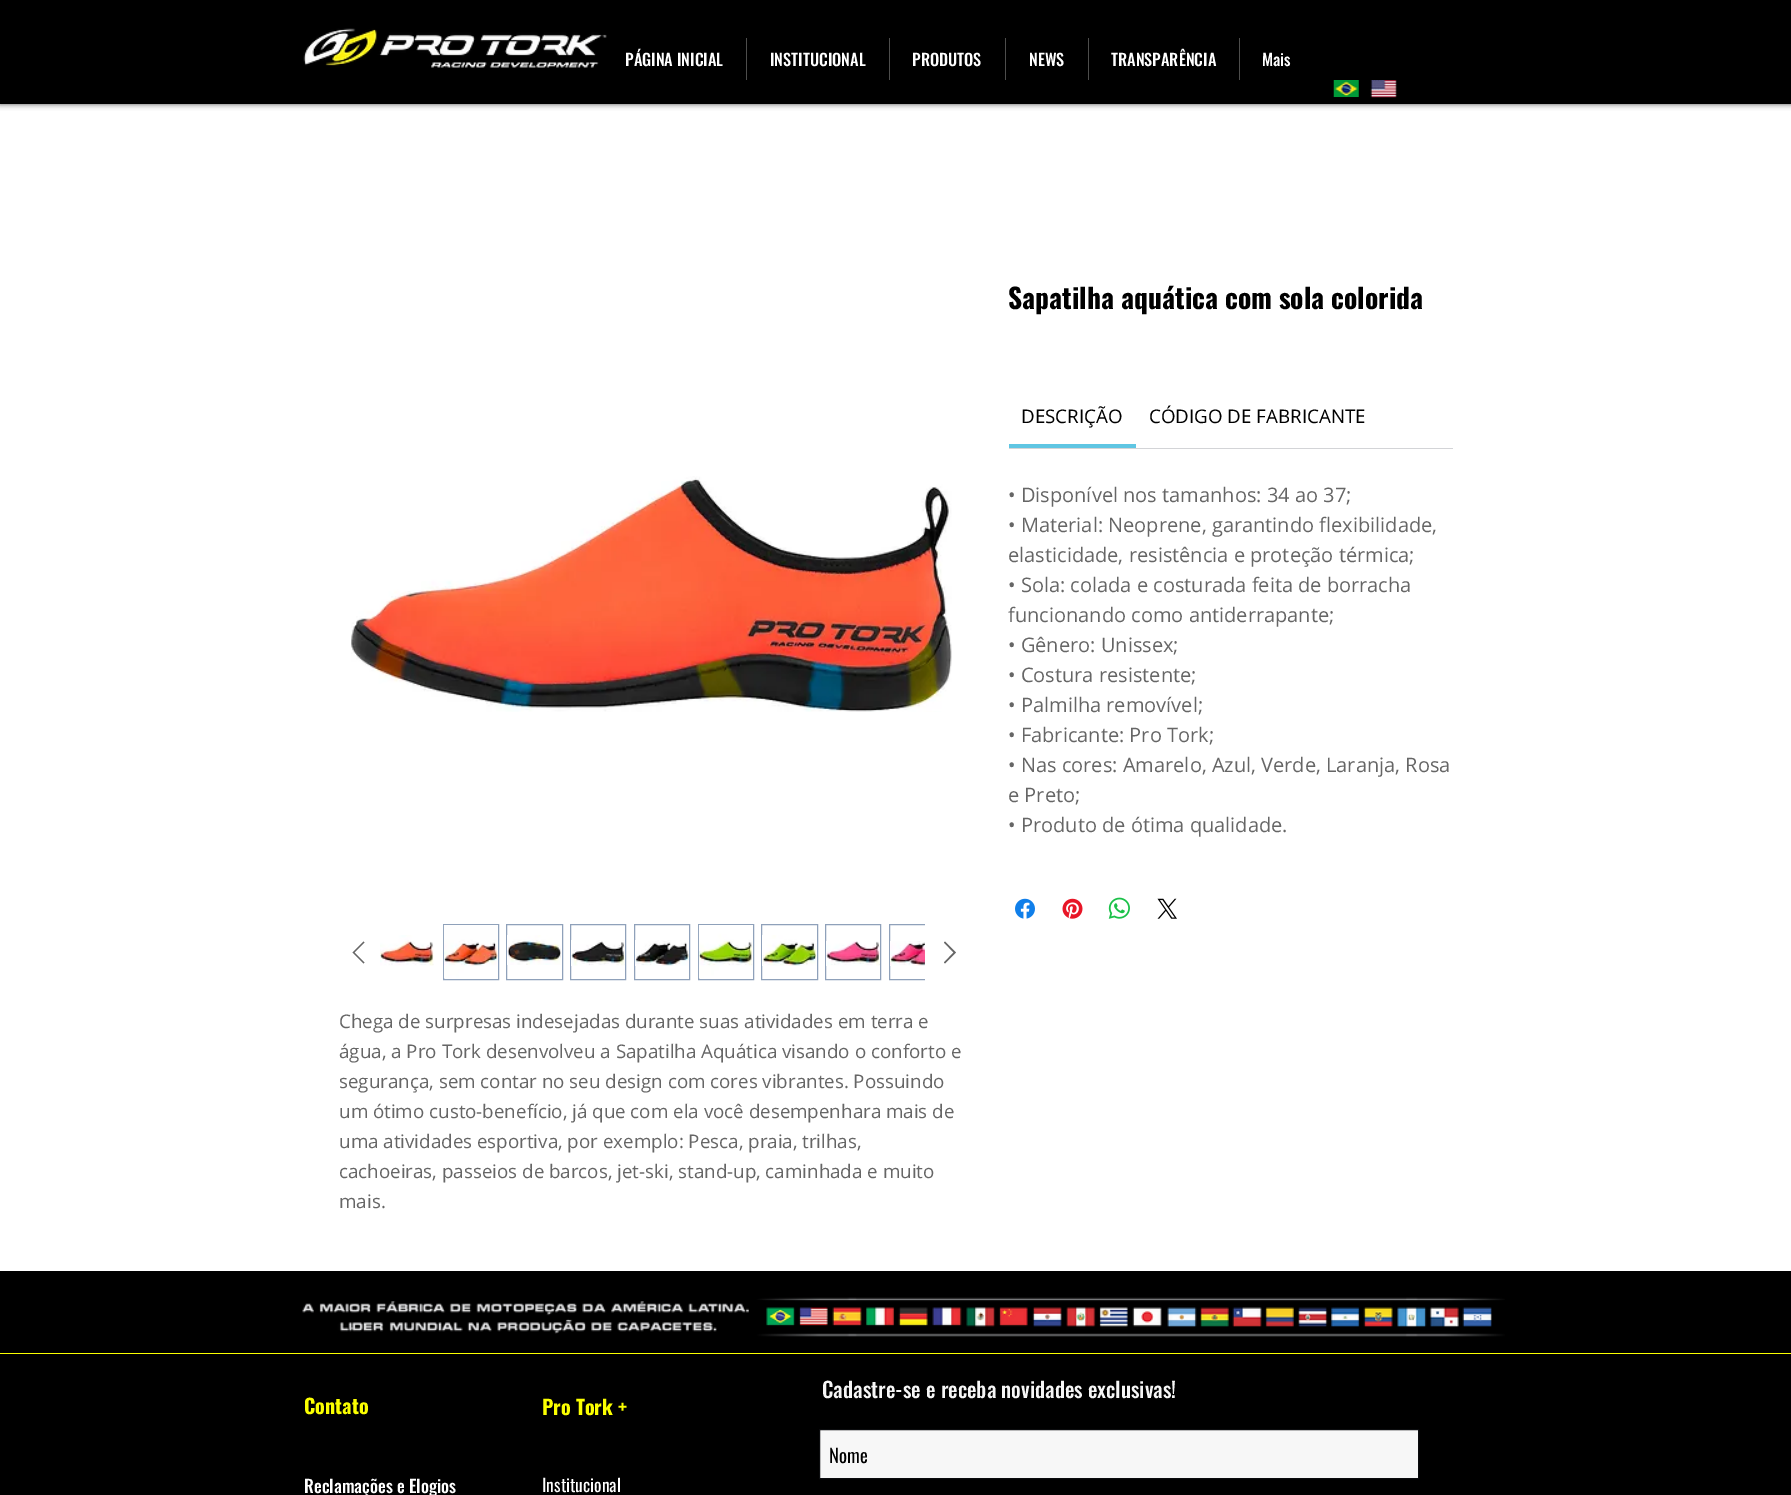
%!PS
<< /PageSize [1791 1495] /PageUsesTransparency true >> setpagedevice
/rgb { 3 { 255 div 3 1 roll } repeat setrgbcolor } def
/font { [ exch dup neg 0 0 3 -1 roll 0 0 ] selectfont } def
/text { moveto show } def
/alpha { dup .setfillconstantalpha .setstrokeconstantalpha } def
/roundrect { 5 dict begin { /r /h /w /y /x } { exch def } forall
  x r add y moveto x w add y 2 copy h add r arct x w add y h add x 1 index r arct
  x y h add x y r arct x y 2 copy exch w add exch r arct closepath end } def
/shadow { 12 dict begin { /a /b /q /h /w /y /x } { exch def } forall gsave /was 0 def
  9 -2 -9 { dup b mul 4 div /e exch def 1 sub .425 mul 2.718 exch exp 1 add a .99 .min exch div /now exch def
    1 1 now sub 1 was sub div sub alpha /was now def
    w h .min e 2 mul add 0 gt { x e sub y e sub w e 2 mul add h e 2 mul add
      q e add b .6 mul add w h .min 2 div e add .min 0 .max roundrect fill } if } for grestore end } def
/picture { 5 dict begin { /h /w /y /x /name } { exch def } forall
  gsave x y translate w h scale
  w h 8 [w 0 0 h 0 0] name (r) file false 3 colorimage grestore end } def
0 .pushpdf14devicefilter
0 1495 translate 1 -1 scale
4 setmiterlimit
255 255 255 rgb
0 0 1791 1495 rectfill
0 0 0 rgb
0 0 1791 104 0 3 0.7 shadow
0 0 1791 104 rectfill
(img_01.rgb) 303 28 304 40 picture
77 77 76 rgb
746 38 1 42 rectfill
889 38 1 42 rectfill
1005 38 1 42 rectfill
1088 38 1 42 rectfill
1239 38 1 42 rectfill
(img_02.rgb) 1333 80 26 18 picture
(img_03.rgb) 1370 80 27 18 picture
211 212 215 rgb
1009 448 444 1 rectfill
95 198 227 rgb
1009 444 127 4 rectfill
(img_04.rgb) 1015 898 20 21 picture
(img_05.rgb) 1062 898 21 21 picture
(img_06.rgb) 1108 897 22 22 picture
(img_07.rgb) 1157 898 20 21 picture
(img_08.rgb) 351 476 601 236 picture
102 102 102 rgb
363.5 941.5 moveto 1 1 rlineto -10 10 rlineto 10 10 rlineto -1 1 rlineto -11 -11 rlineto closepath eofill
(img_09.rgb) 380 935 54 31 picture
143 161 186 rgb
443.5 924.5 55 55 rectstroke
(img_10.rgb) 443 925 55 53 picture
506.5 924.5 56 55 rectstroke
(img_11.rgb) 507 935 54 30 picture
570.5 924.5 55 55 rectstroke
(img_12.rgb) 571 940 54 26 picture
634.5 924.5 55 55 rectstroke
(img_13.rgb) 635 940 54 26 picture
698.5 924.5 55 55 rectstroke
(img_14.rgb) 698 925 55 53 picture
761.5 924.5 56 55 rectstroke
(img_15.rgb) 762 935 55 31 picture
825.5 924.5 55 55 rectstroke
(img_16.rgb) 826 941 54 25 picture
102 102 102 rgb
945 941.5 moveto 11 11 rlineto -11 11 rlineto -1 -1 rlineto 9.5 -10 rlineto -9.5 -10 rlineto closepath eofill
gsave
374 919 551 66 rectclip
143 161 186 rgb
889.5 924.5 55 55 rectstroke
grestore
(img_17.rgb) 890 941 35 25 picture
0 0 0 rgb
0 1271 1791 224 rectfill
(img_18.rgb) 302 1297 1203 40 picture
251 255 0 rgb
0 1353 1791 1 rectfill
247 247 247 rgb
819.5 1429.5 moveto 599 0 rlineto 0 49 rlineto -599 0 rlineto closepath gsave fill grestore
11 12 14 rgb
stroke
/Oswald-Medium 16.25 font
255 255 255 rgb
(PÁGINA INICIAL) 625 66 text
(INSTITUCIONAL) 770 66 text
(PRODUTOS) 912 66 text
(NEWS) 1029 66 text
(TRANSPARÊNCIA) 1111 66 text
(Mais) 1262 66 text
/Oswald-Bold 27.5 font
0 0 0 rgb
(Sapatilha aquática com sola colorida) 1008 309 text
/OpenSans-Regular 18.75 font
(DESCRIÇÃO) 1021 423 text
(CÓDIGO DE FABRICANTE) 1149 423 text
/OpenSans-Regular 20 font
102 102 102 rgb
(• Disponível nos tamanhos: 34 ao 37;) 1008 502 text
(• Material: Neoprene, garantindo flexibilidade,) 1008 532 text
(elasticidade, resistência e proteção térmica;) 1008 562 text
(• Sola: colada e costurada feita de borracha) 1008 592 text
(funcionando como antiderrapante;) 1008 622 text
(• Gênero: Unissex;) 1008 652 text
(• Costura resistente;) 1008 682 text
(• Palmilha removível;) 1008 712 text
(• Fabricante: Pro Tork;) 1008 742 text
(• Nas cores: Amarelo, Azul, Verde, Laranja, Rosa) 1008 772 text
(e Preto;) 1008 802 text
(• Produto de ótima qualidade.) 1008 832 text
/OpenSans-Regular 18.75 font
(Chega de surpresas indesejadas durante suas atividades em terra e) 339 1028 text
(água, a Pro Tork desenvolveu a Sapatilha Aquática visando o conforto e) 339 1058 text
(segurança, sem contar no seu design com cores vibrantes. Possuindo) 339 1088 text
(um ótimo custo-benefício, já que com ela você desempenhara mais de) 339 1118 text
(uma atividades esportiva, por exemplo: Pesca, praia, trilhas,) 339 1148 text
(cachoeiras, passeios de barcos, jet-ski, stand-up, caminhada e muito) 339 1178 text
(mais.) 339 1208 text
/Oswald-Bold 20 font
251 255 0 rgb
(Contato) 304 1414 text
(Pro Tork +) 542 1415 text
/Oswald-Medium 21.25 font
246 246 246 rgb
(Cadastre-se e receba novidades exclusivas!) 822 1398 text
/Oswald-Regular 18.75 font
0 0 0 rgb
(Nome) 829 1463 text
/Oswald-Medium 17.5 font
255 255 255 rgb
(Reclamações e Elogios) 304 1493 text
/Oswald-Regular 17.5 font
(Institucional) 542 1492 text
.poppdf14devicefilter showpage
